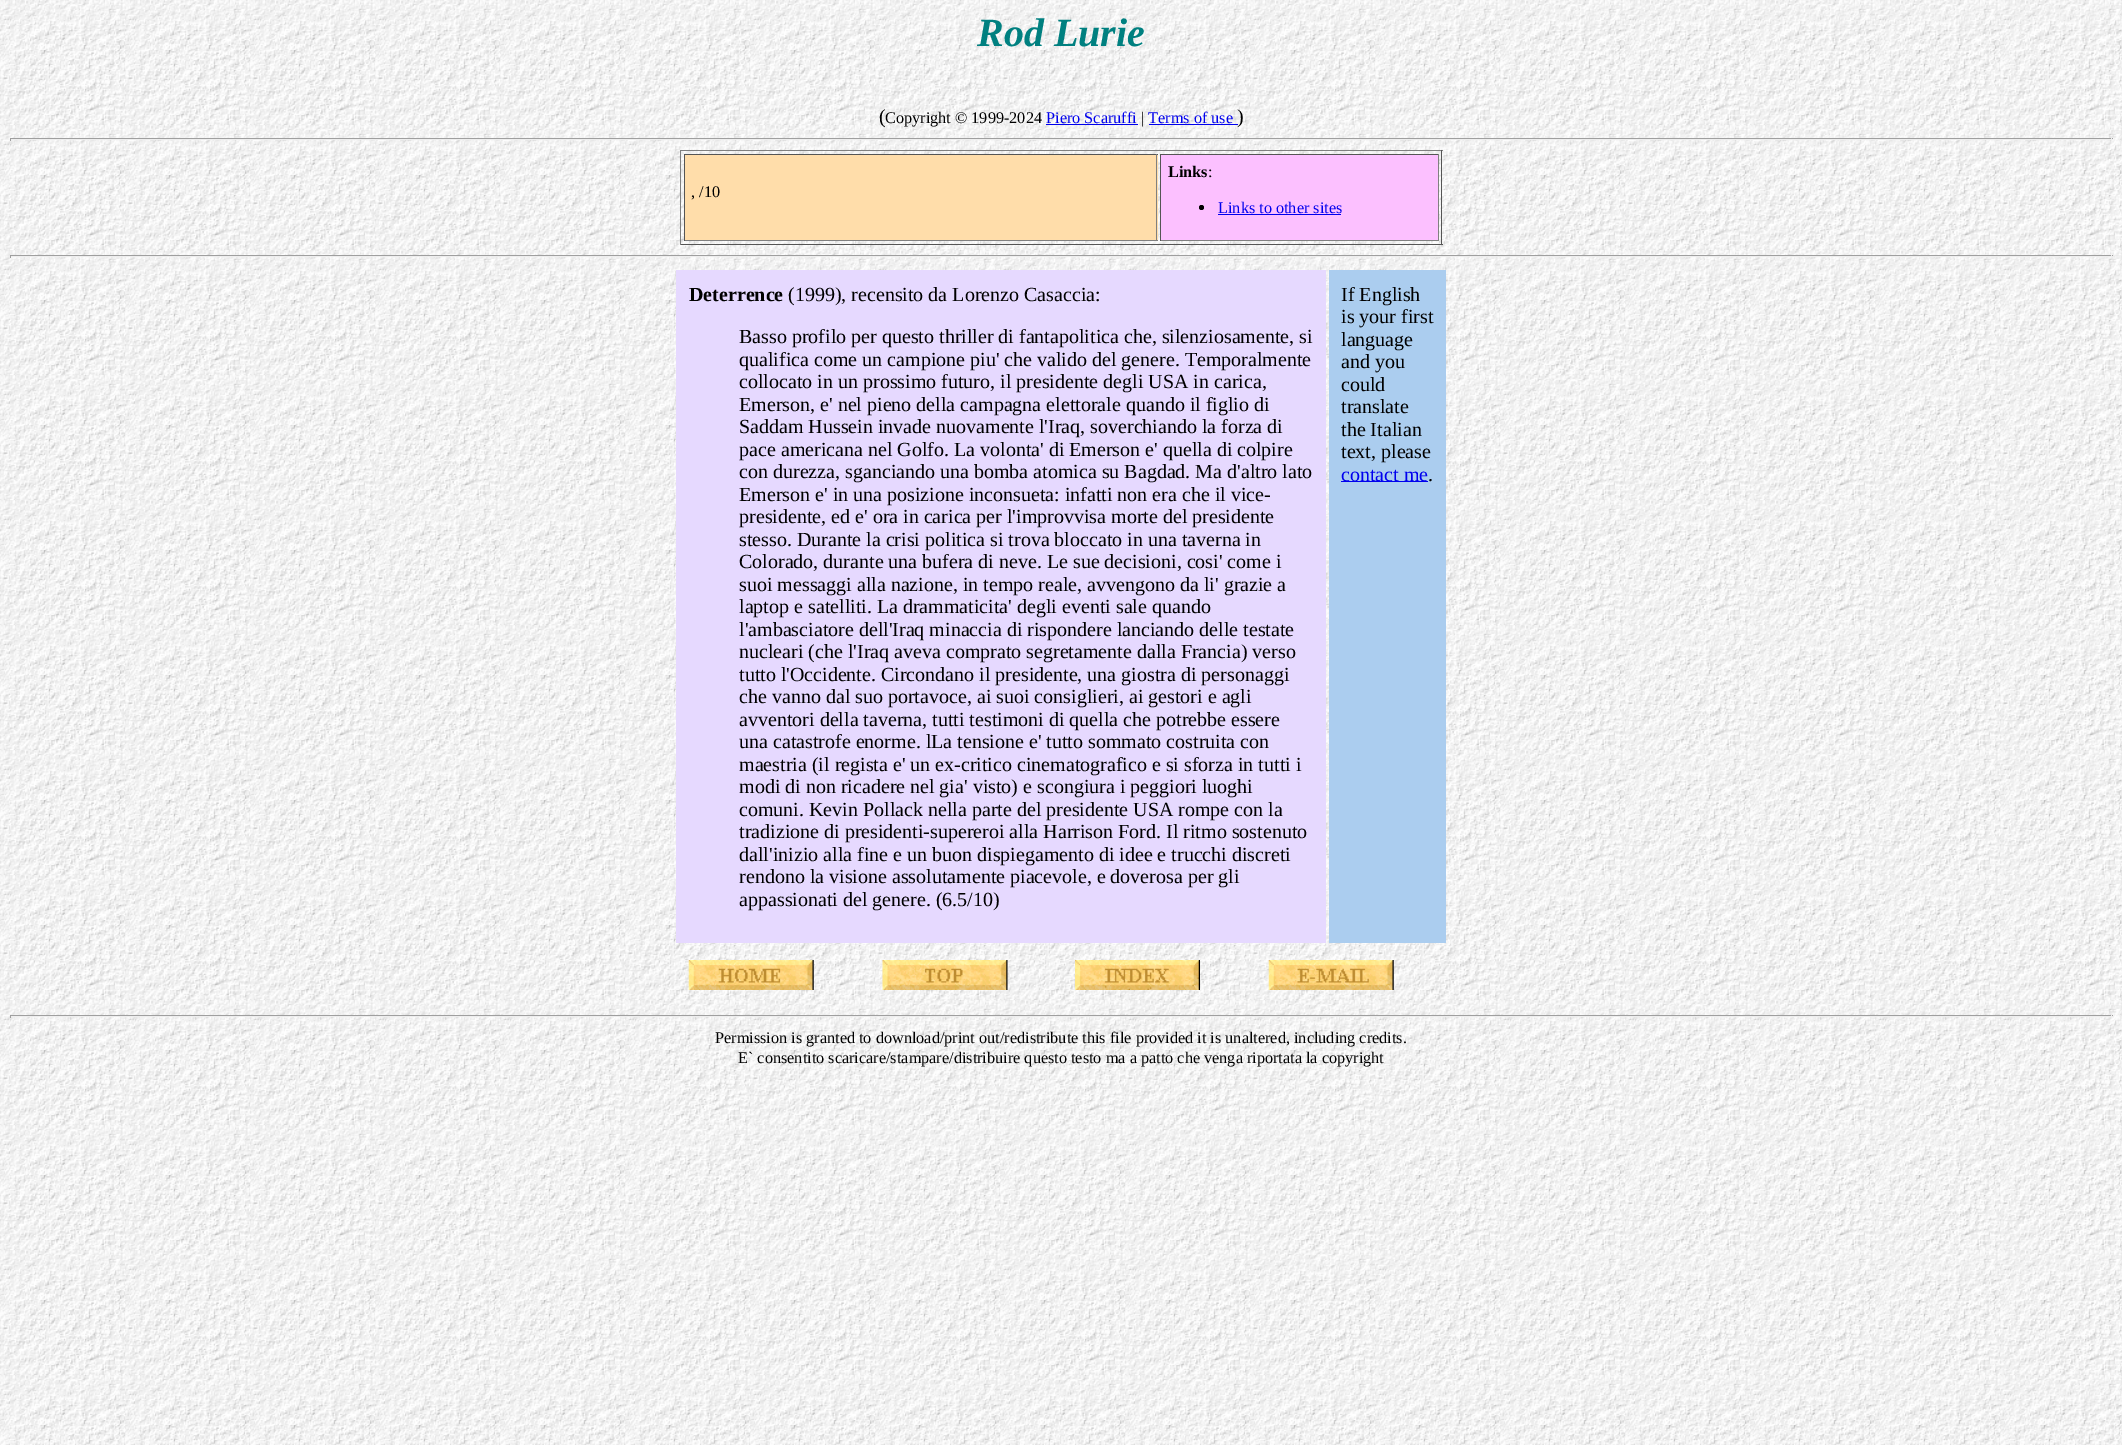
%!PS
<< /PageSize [2122 1445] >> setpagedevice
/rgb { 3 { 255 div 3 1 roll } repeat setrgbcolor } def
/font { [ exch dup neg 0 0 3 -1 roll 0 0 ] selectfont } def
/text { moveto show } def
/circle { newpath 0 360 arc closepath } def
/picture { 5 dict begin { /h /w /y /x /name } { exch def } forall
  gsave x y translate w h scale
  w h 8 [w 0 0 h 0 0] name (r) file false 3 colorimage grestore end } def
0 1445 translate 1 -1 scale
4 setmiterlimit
255 255 255 rgb
0 0 2122 1445 rectfill
(img_01.rgb) 0 0 2122 1445 picture
0 0 238 rgb
1046 124 92 1 rectfill
1149 124 89 1 rectfill
159 159 159 rgb
10 138 2103 1 rectfill
238 238 238 rgb
2111 138 1 3 rectfill
10 139 2103 1 rectfill
159 159 159 rgb
10 138 1 3 rectfill
128 128 128 rgb
680 150 763 1 rectfill
85 85 85 rgb
1441 150 1 95 rectfill
680 244 763 1 rectfill
128 128 128 rgb
680 150 1 95 rectfill
255 221 170 rgb
685 155 473 85 rectfill
85 85 85 rgb
684 154 474 1 rectfill
128 128 128 rgb
1156 154 1 87 rectfill
684 240 474 1 rectfill
85 85 85 rgb
684 154 1 87 rectfill
252 192 255 rgb
1161 155 277 85 rectfill
85 85 85 rgb
1160 154 279 1 rectfill
128 128 128 rgb
1438 154 1 87 rectfill
1160 240 279 1 rectfill
85 85 85 rgb
1160 154 1 87 rectfill
0 0 0 rgb
1201.5 207.5 2.5 circle fill
0 0 238 rgb
1218 214 123 1 rectfill
159 159 159 rgb
10 255 2103 1 rectfill
238 238 238 rgb
2111 255 1 3 rectfill
10 256 2103 1 rectfill
159 159 159 rgb
10 255 1 3 rectfill
230 217 255 rgb
676 270 650 673 rectfill
171 205 239 rgb
1329 270 117 673 rectfill
0 0 238 rgb
1341 481 87 1 rectfill
(img_02.rgb) 688 960 126 30 picture
(img_03.rgb) 882 960 126 30 picture
(img_04.rgb) 1075 960 125 30 picture
(img_05.rgb) 1268 960 126 30 picture
159 159 159 rgb
10 1015 2103 1 rectfill
238 238 238 rgb
2111 1015 1 3 rectfill
10 1016 2103 1 rectfill
159 159 159 rgb
10 1015 1 3 rectfill
/LiberationSerif-BoldItalic 40 font
0 128 128 rgb
(Rod Lurie) 977 46 text
/LiberationSerif-Regular 20 font
0 0 0 rgb
(\() 879 123 text
/LiberationSerif-Regular 16.25 font
(Copyright © 1999-2024) 885 123 text
0 0 238 rgb
(Piero Scaruffi) 1046 123 text
0 0 0 rgb
(|) 1141 123 text
0 0 238 rgb
(Terms of use) 1148 123 text
/LiberationSerif-Regular 20 font
0 0 0 rgb
(\)) 1237 123 text
/LiberationSerif-Regular 16.25 font
(, /10) 691 197 text
/LiberationSerif-Bold 16.25 font
(Links) 1168 177 text
/LiberationSerif-Regular 16.25 font
(:) 1208 177 text
0 0 238 rgb
(Links to other sites) 1218 213 text
/LiberationSerif-Bold 20 font
0 0 0 rgb
(Deterrence) 689 301 text
/LiberationSerif-Regular 20 font
(\(1999\), recensito da Lorenzo Casaccia:) 788 301 text
(Basso profilo per questo thriller di fantapolitica che, silenziosamente, si) 739 343 text
(qualifica come un campione piu' che valido del genere. Temporalmente) 739 366 text
(collocato in un prossimo futuro, il presidente degli USA in carica,) 739 388 text
(Emerson, e' nel pieno della campagna elettorale quando il figlio di) 739 411 text
(Saddam Hussein invade nuovamente l'Iraq, soverchiando la forza di) 739 433 text
(pace americana nel Golfo. La volonta' di Emerson e' quella di colpire) 739 456 text
(con durezza, sganciando una bomba atomica su Bagdad. Ma d'altro lato) 739 478 text
(Emerson e' in una posizione inconsueta: infatti non era che il vice-) 739 501 text
(presidente, ed e' ora in carica per l'improvvisa morte del presidente) 739 523 text
(stesso. Durante la crisi politica si trova bloccato in una taverna in) 739 546 text
(Colorado, durante una bufera di neve. Le sue decisioni, cosi' come i) 739 568 text
(suoi messaggi alla nazione, in tempo reale, avvengono da li' grazie a) 739 591 text
(laptop e satelliti. La drammaticita' degli eventi sale quando) 739 613 text
(l'ambasciatore dell'Iraq minaccia di rispondere lanciando delle testate) 739 636 text
(nucleari \(che l'Iraq aveva comprato segretamente dalla Francia\) verso) 739 658 text
(tutto l'Occidente. Circondano il presidente, una giostra di personaggi) 739 681 text
(che vanno dal suo portavoce, ai suoi consiglieri, ai gestori e agli) 739 703 text
(avventori della taverna, tutti testimoni di quella che potrebbe essere) 739 726 text
(una catastrofe enorme. lLa tensione e' tutto sommato costruita con) 739 748 text
(maestria \(il regista e' un ex-critico cinematografico e si sforza in tutti i) 739 771 text
(modi di non ricadere nel gia' visto\) e scongiura i peggiori luoghi) 739 793 text
(comuni. Kevin Pollack nella parte del presidente USA rompe con la) 739 816 text
(tradizione di presidenti-supereroi alla Harrison Ford. Il ritmo sostenuto) 739 838 text
(dall'inizio alla fine e un buon dispiegamento di idee e trucchi discreti) 739 861 text
(rendono la visione assolutamente piacevole, e doverosa per gli) 739 883 text
(appassionati del genere. \(6.5/10\)) 739 906 text
(If English) 1341 301 text
(is your first) 1341 323 text
(language) 1341 346 text
(and you) 1341 368 text
(could) 1341 391 text
(translate) 1341 413 text
(the Italian) 1341 436 text
(text, please) 1341 458 text
0 0 238 rgb
(contact me) 1341 481 text
0 0 0 rgb
(.) 1428 481 text
/LiberationSerif-Regular 16.25 font
(Permission is granted to download/print out/redistribute this file provided it is unaltered, including credits.) 715 1043 text
(E` consentito scaricare/stampare/distribuire questo testo ma a patto che venga riportata la copyright) 738 1063 text
showpage
